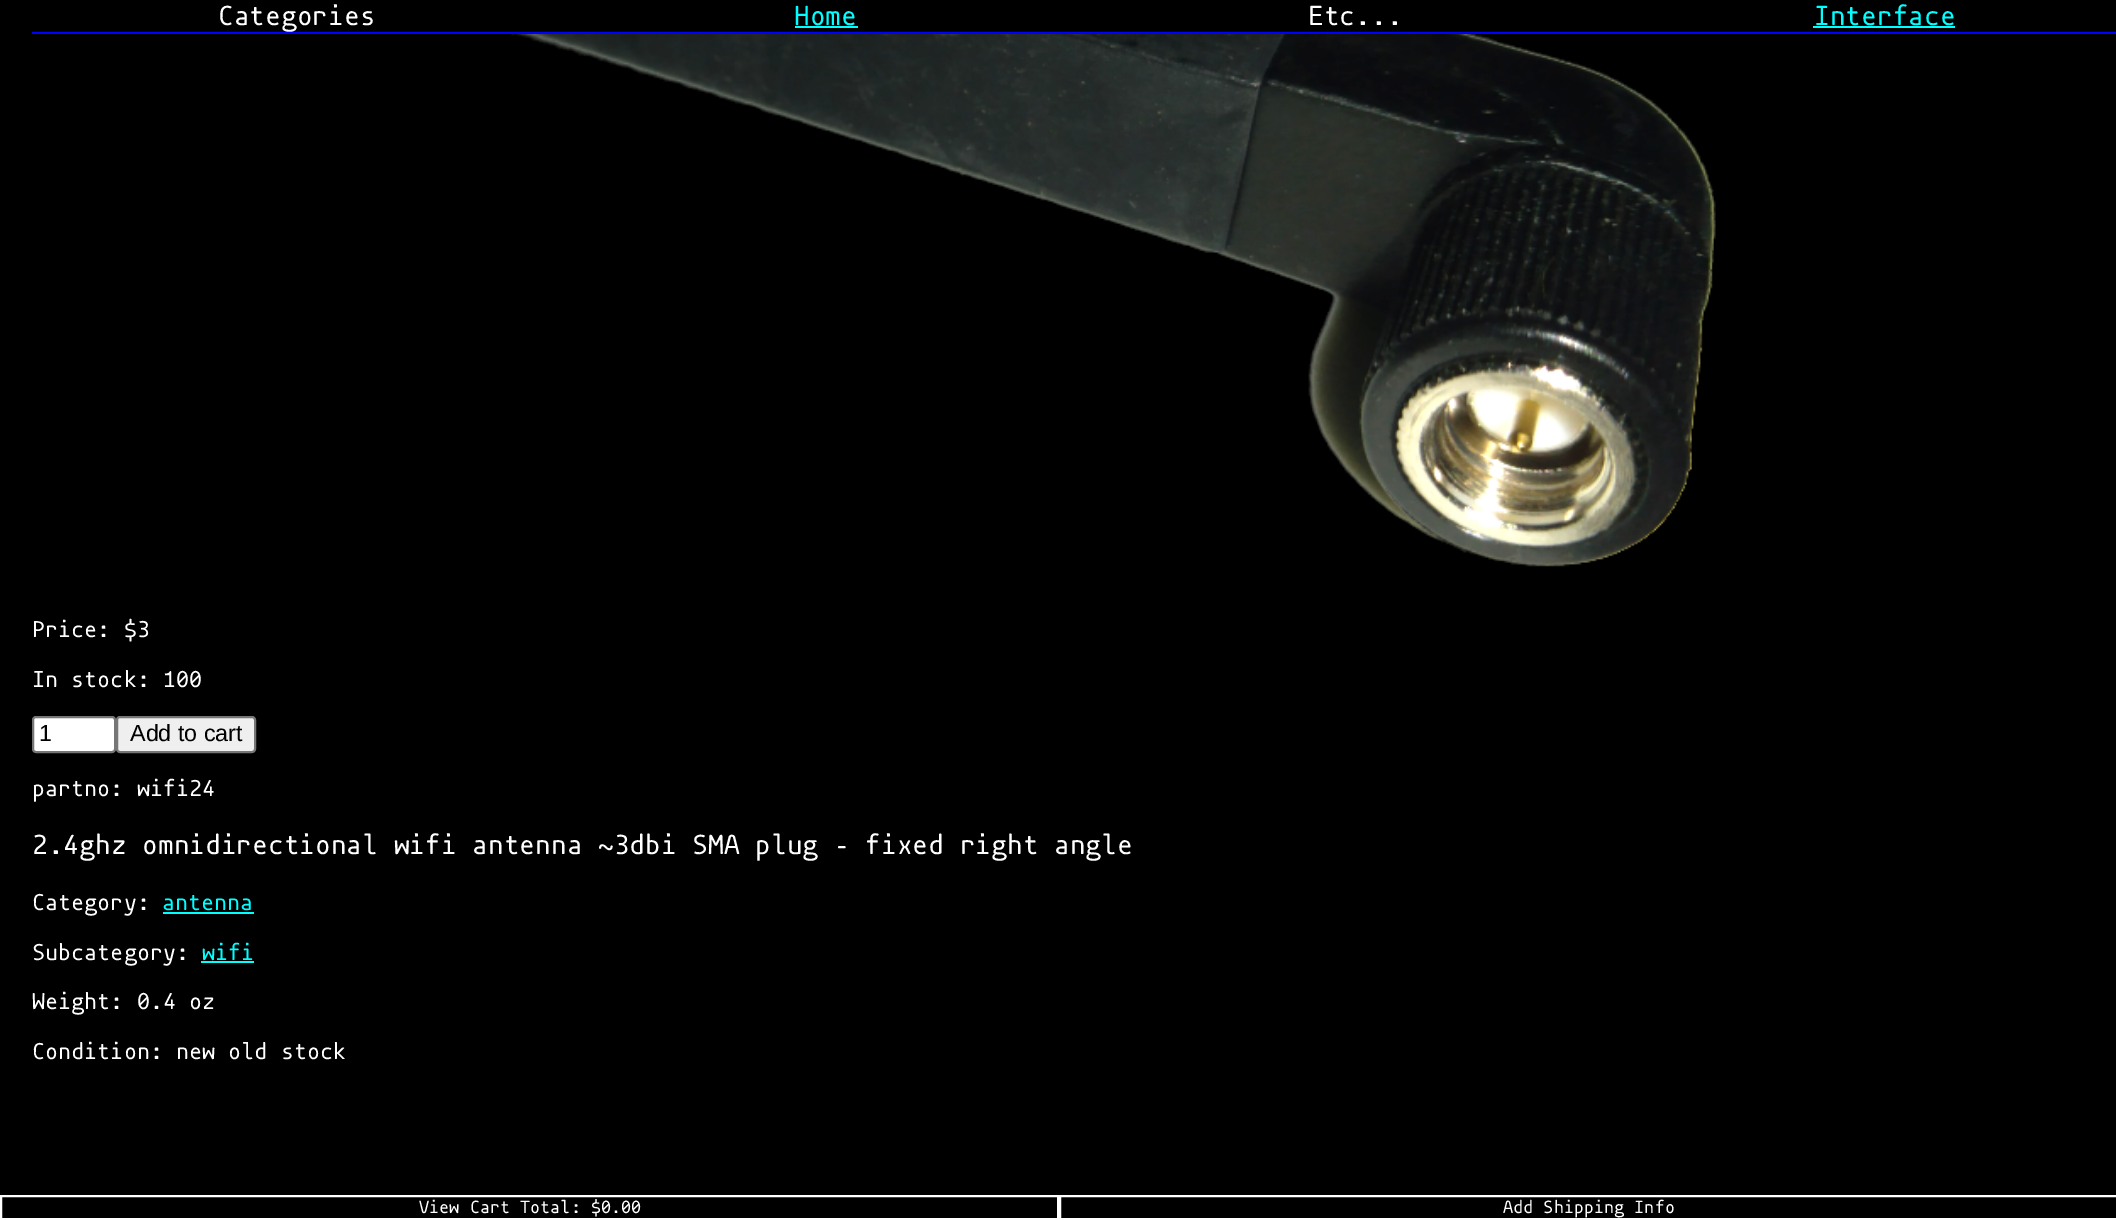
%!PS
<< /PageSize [2116 1220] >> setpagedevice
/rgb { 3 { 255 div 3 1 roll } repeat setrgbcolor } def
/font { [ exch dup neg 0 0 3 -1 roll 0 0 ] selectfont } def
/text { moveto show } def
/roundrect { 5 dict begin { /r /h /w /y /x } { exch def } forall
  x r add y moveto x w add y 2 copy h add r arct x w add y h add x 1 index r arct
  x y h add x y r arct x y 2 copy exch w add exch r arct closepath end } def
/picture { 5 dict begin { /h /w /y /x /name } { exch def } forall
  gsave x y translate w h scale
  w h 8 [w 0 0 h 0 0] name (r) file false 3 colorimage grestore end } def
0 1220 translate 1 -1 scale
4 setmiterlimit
0 0 0 rgb
0 0 2116 1220 rectfill
0 0 255 rgb
32 32 2084 2 rectfill
0 255 255 rgb
795 26 63 2 rectfill
1813 26 142 2 rectfill
(img_01.rgb) 510 34 1206 533 picture
255 255 255 rgb
33 717 82 35 3 roundrect gsave fill grestore
118 118 118 rgb
2 setlinewidth
stroke
239 239 239 rgb
117 717 138 35 3 roundrect gsave fill grestore
118 118 118 rgb
stroke
0 255 255 rgb
163 912 91 2 rectfill
201 961 53 2 rectfill
255 255 255 rgb
1 1196 1057 23 rectstroke
1060 1196 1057 23 rectstroke
/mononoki-Regular 28 font
(Categories) 218 25 text
0 255 255 rgb
(Home) 794 25 text
255 255 255 rgb
(Etc...) 1308 25 text
0 255 255 rgb
(Interface) 1814 25 text
/mononoki-Regular 23.3 font
255 255 255 rgb
(Price: $3) 32 637 text
(In stock: 100) 32 687 text
/LiberationSans-Regular 23.3 font
0 0 0 rgb
(1) 39 741 text
(Add to cart) 130 741 text
/mononoki-Regular 23.3 font
255 255 255 rgb
(partno: wifi24) 32 796 text
/mononoki-Regular 28 font
(2.4ghz omnidirectional wifi antenna ~3dbi SMA plug – fixed right angle) 32 854 text
/mononoki-Regular 23.3 font
(Category:) 32 910 text
0 255 255 rgb
(antenna) 162 910 text
255 255 255 rgb
(Subcategory:) 32 960 text
0 255 255 rgb
(wifi) 202 960 text
255 255 255 rgb
(Weight: 0.4 oz) 32 1009 text
(Condition: new old stock) 32 1059 text
/mononoki-Regular 18 font
(View Cart Total: $0.00) 419 1213 text
(Add Shipping Info) 1503 1213 text
showpage
